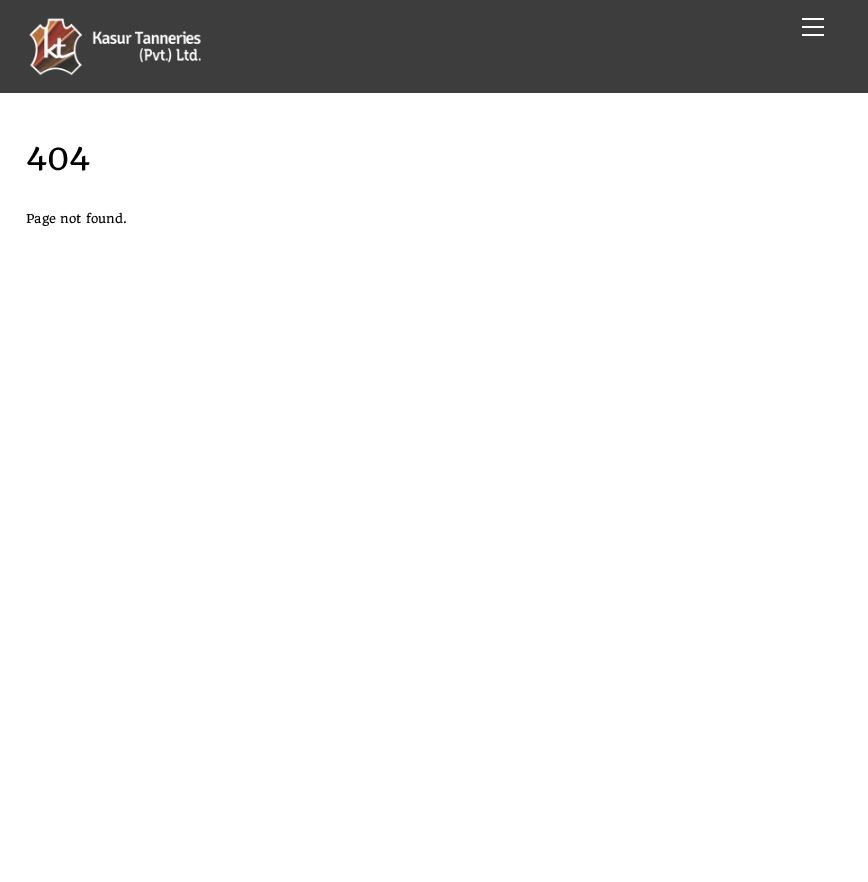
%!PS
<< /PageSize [868 882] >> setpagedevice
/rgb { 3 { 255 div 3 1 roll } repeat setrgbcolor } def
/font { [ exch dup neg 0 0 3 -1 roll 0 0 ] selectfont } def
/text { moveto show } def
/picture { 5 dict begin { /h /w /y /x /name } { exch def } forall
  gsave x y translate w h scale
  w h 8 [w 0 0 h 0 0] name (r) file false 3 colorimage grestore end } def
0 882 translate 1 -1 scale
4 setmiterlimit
255 255 255 rgb
0 0 868 882 rectfill
61 61 61 rgb
0 0 868 93 rectfill
(img_01.rgb) 29 18 172 58 picture
255 255 255 rgb
802 34 22 2 rectfill
802 18 22 2 rectfill
802 26 22 2 rectfill
/Quando-Regular 30 font
0 0 0 rgb
26 170 moveto -0.5 0 (404) ashow
/Quando-Regular 12 font
(Page not found.) 26 223 text
showpage
